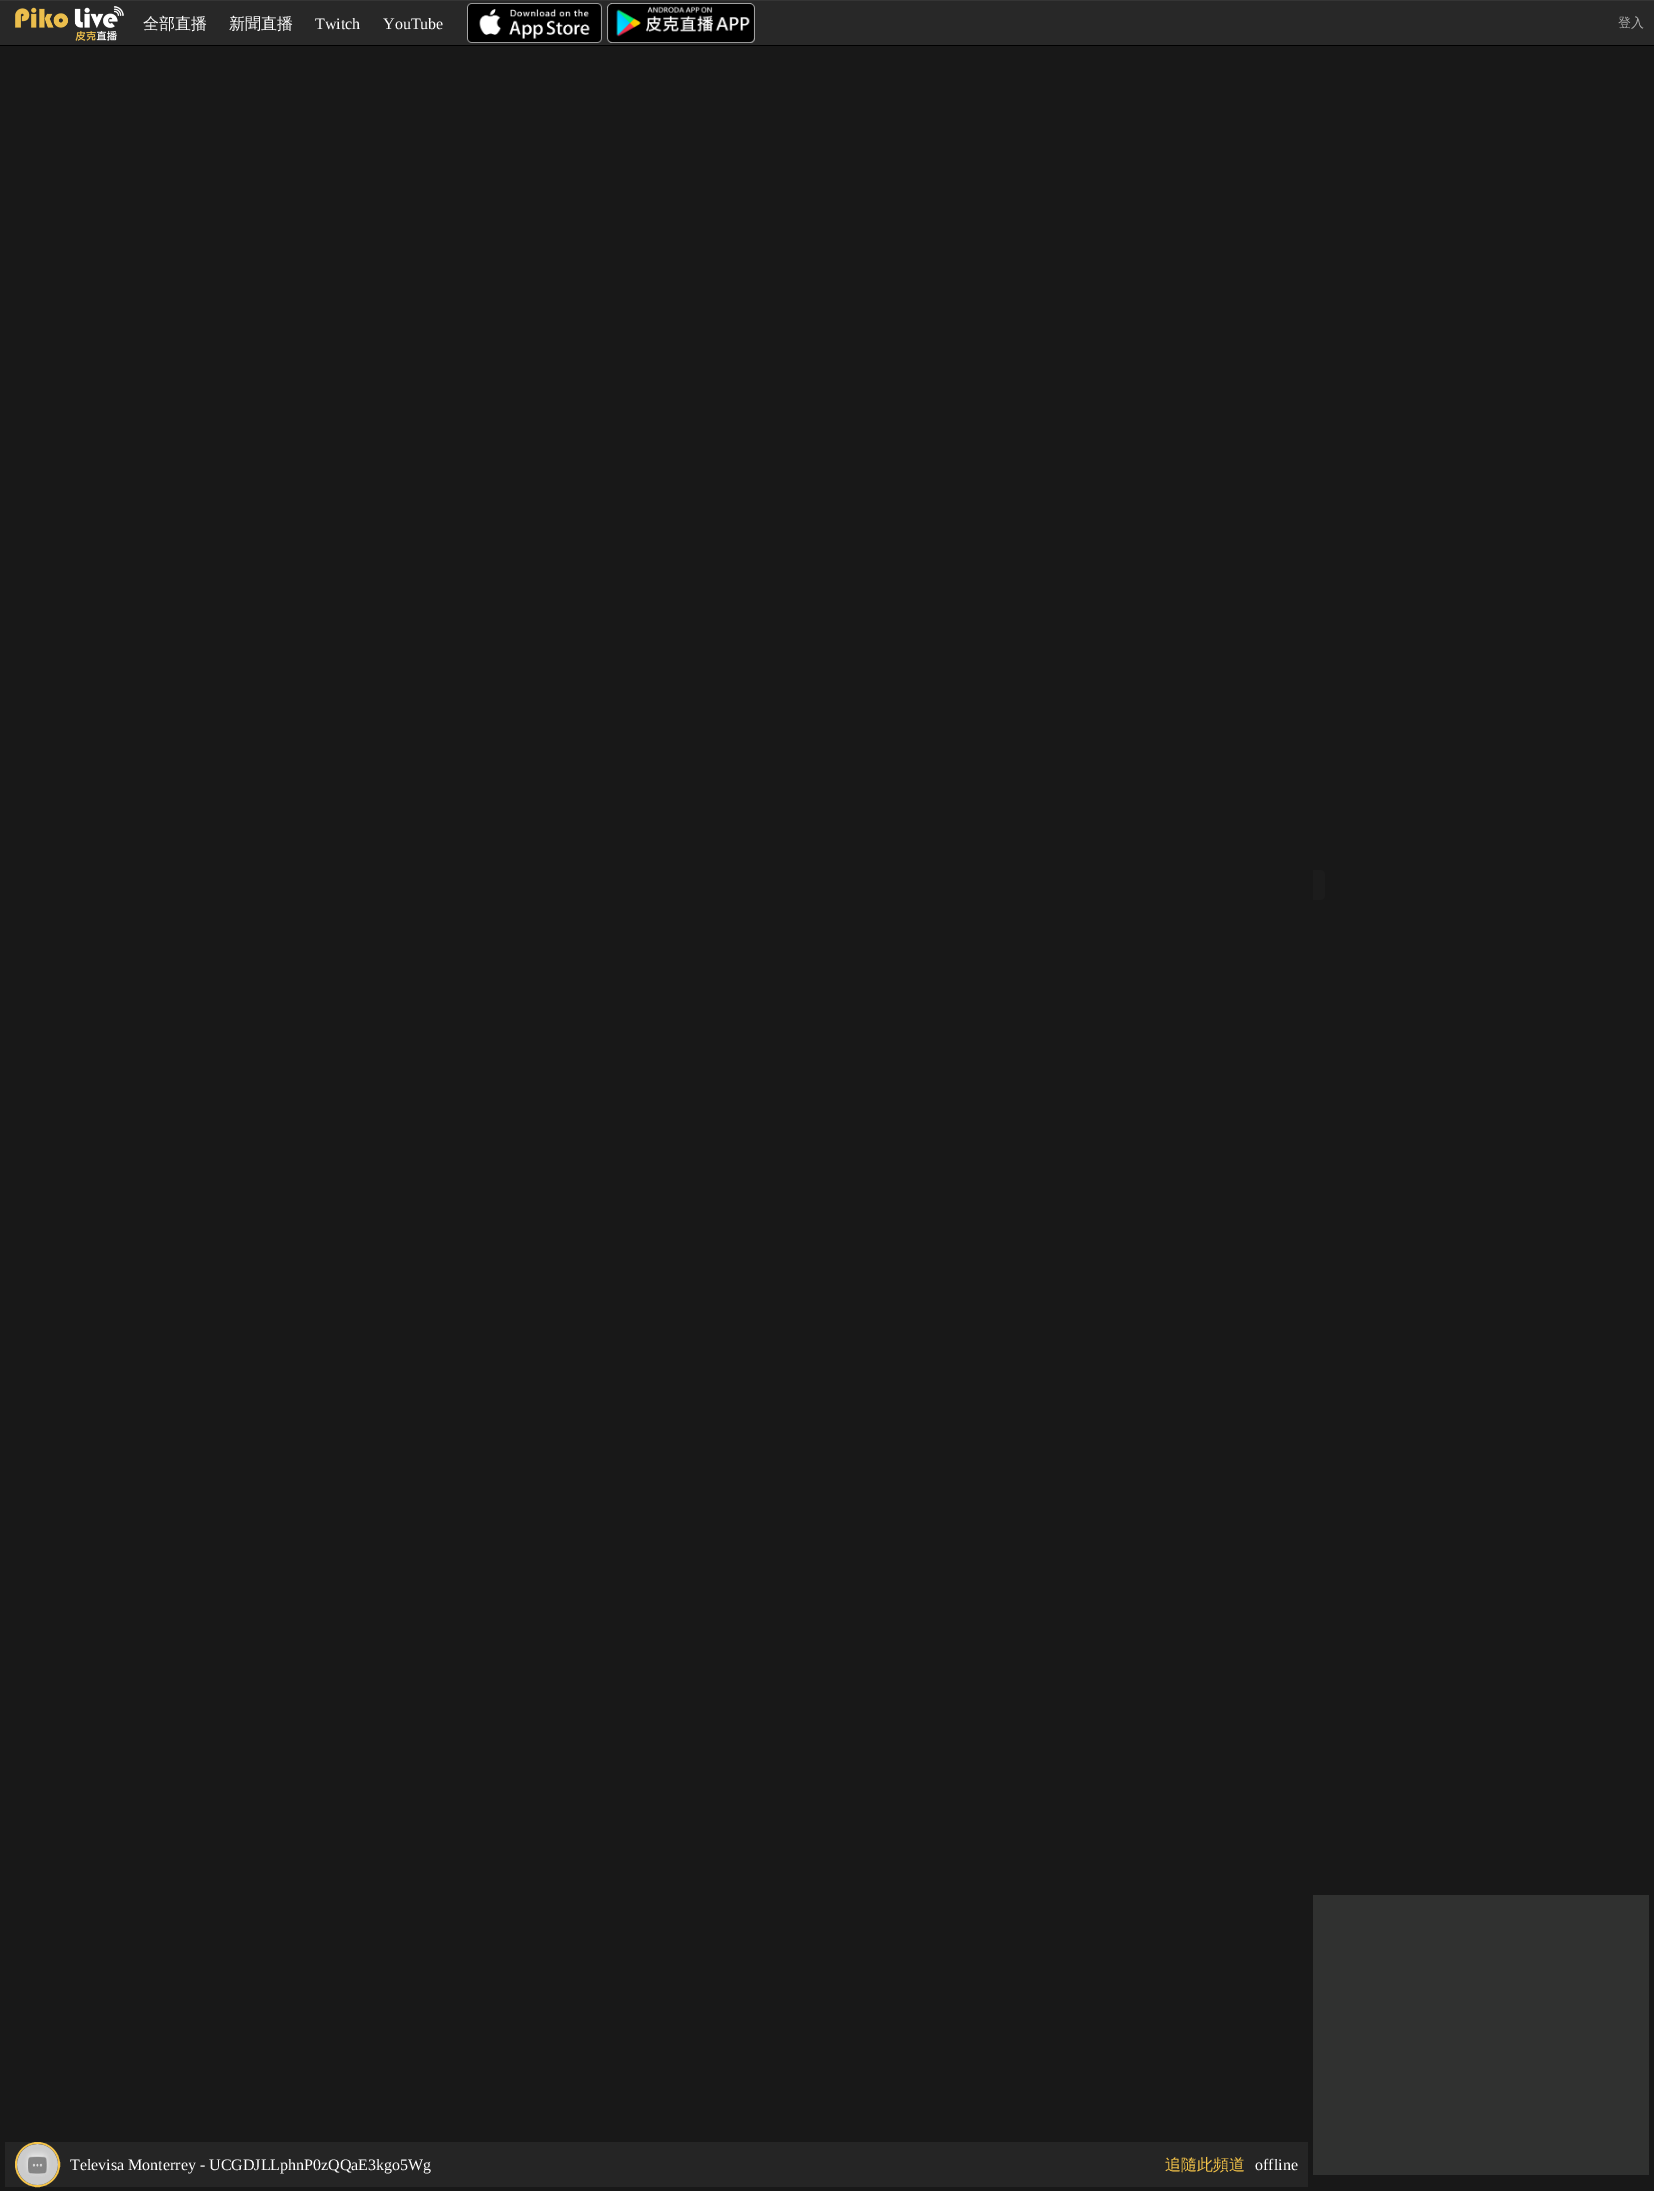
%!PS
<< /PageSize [1654 2191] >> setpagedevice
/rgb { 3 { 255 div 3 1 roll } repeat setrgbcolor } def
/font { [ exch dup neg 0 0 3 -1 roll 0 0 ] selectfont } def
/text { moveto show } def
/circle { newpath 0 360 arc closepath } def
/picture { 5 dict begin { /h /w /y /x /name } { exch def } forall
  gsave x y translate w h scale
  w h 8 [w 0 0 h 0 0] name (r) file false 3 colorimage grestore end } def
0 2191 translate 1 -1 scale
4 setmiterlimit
24 24 24 rgb
0 0 1654 2191 rectfill
40 40 40 rgb
0 1 1654 44 rectfill
53 53 53 rgb
0 0 1654 1 rectfill
0 0 0 rgb
0 45 1654 1 rectfill
(img_01.rgb) 15 6 109 35 picture
(img_02.rgb) 467 3 135 40 picture
(img_03.rgb) 607 3 148 40 picture
28 28 28 rgb
1313 870 moveto 7 0 rlineto 3 0 5 2 5 5 rcurveto 0 20 rlineto 0 3 -2 5 -5 5 rcurveto -7 0 rlineto closepath fill
37 37 37 rgb
5 2142 1303 45 rectfill
245 196 73 rgb
2 setlinewidth
37.5 2164.5 21.5 circle stroke
(img_04.rgb) 17 2144 41 41 picture
48 49 48 rgb
1313 1895 336 280 rectfill
/WenQuanYiZenHei-Medium 16 font
255 255 255 rgb
(全部直播) 143 29 text
(新聞直播) 229 29 text
/LiberationSerif-Regular 16 font
(Twitch) 315 29 text
(YouTube) 383 29 text
/WenQuanYiZenHei-Medium 13 font
175 175 175 rgb
(登入) 1618 27 text
/LiberationSerif-Regular 16 font
255 255 255 rgb
(Televisa Monterrey - UCGDJLLphnP0zQQaE3kgo5Wg) 70 2170 text
/WenQuanYiZenHei-Medium 16 font
245 196 73 rgb
(追隨此頻道) 1165 2170 text
/LiberationSerif-Regular 16 font
255 255 255 rgb
(offline) 1255 2170 text
showpage
